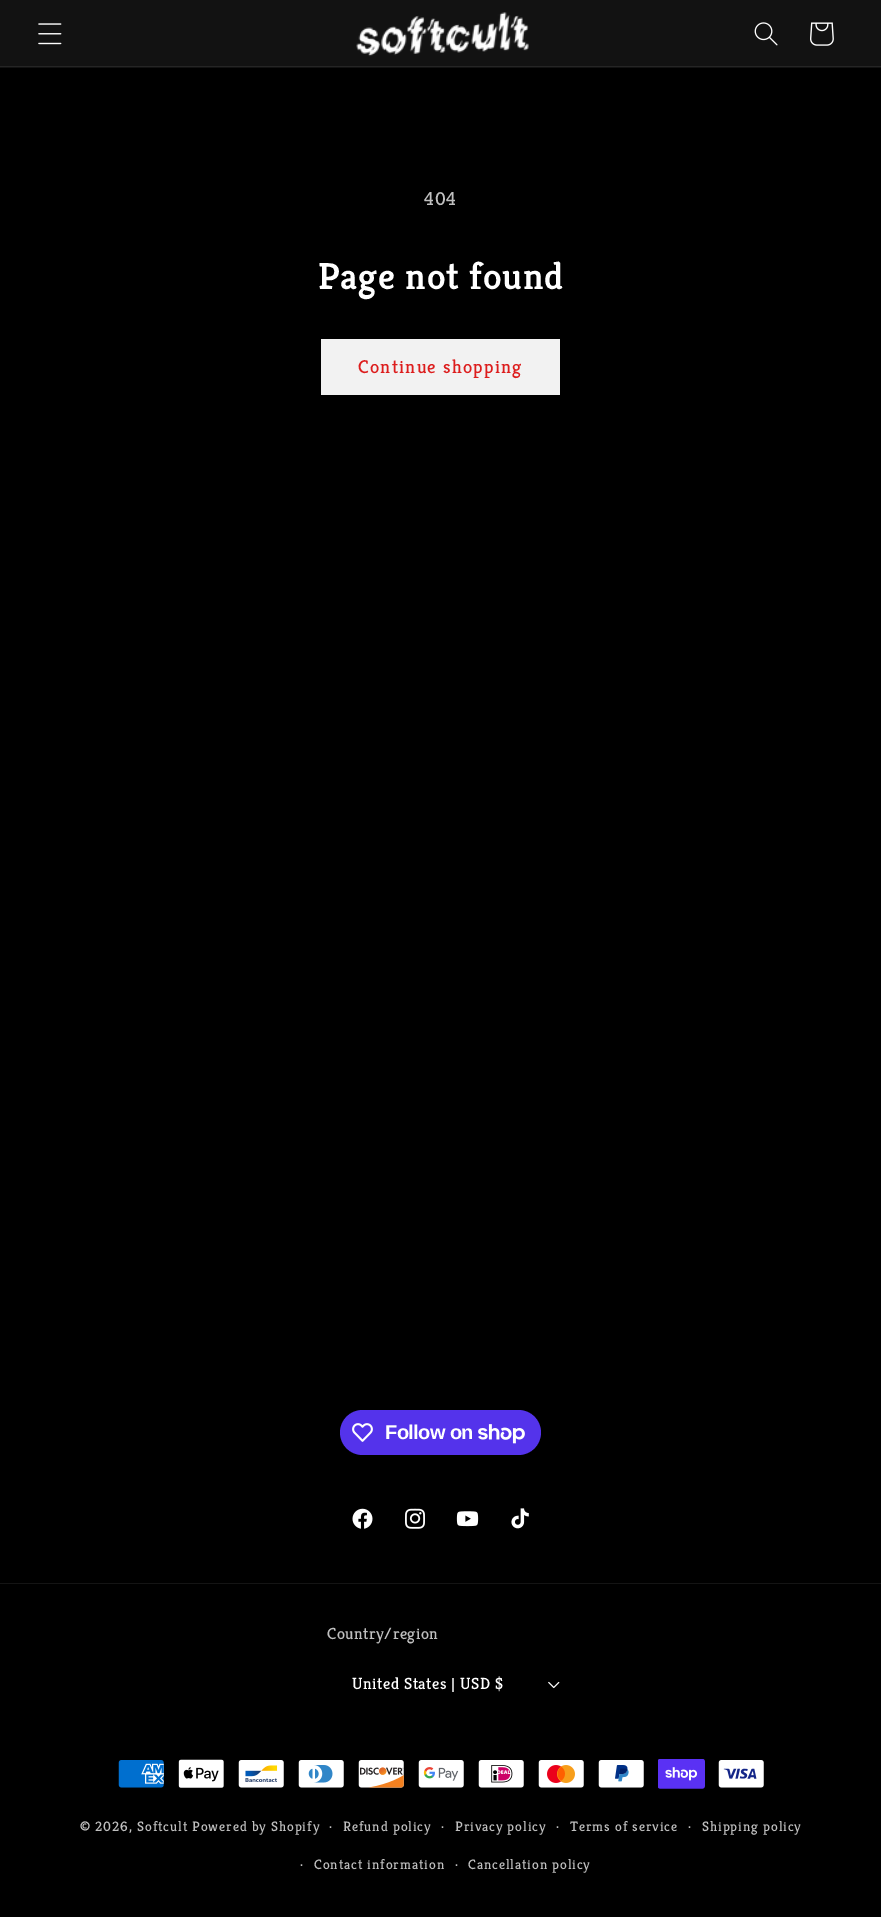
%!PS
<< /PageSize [881 1917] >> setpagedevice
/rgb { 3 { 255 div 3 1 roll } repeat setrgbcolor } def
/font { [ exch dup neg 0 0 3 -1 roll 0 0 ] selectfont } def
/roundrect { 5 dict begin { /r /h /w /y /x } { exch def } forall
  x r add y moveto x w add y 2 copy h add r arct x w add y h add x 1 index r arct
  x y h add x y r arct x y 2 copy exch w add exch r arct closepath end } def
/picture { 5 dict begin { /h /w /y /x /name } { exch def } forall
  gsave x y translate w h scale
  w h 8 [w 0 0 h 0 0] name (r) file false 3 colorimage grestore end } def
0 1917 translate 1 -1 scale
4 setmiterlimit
0 0 0 rgb
0 0 881 1917 rectfill
18 18 18 rgb
0 0 881 68 rectfill
37 37 37 rgb
0 66 881 1 rectfill
(img_01.rgb) 38 23 24 22 picture
(img_02.rgb) 356 12 173 45 picture
(img_03.rgb) 754 22 24 24 picture
(img_04.rgb) 810 22 24 24 picture
242 242 242 rgb
321 339 239 56 rectfill
84 51 235 rgb
340 1410 201 45 22.5 roundrect fill
(img_05.rgb) 352 1423 21 19 picture
(img_06.rgb) 478 1424 47 20 picture
(img_07.rgb) 352 1508 21 21 picture
(img_08.rgb) 405 1508 20 21 picture
(img_09.rgb) 456 1511 23 16 picture
(img_10.rgb) 511 1508 18 21 picture
20 20 20 rgb
0 1583 881 1 rectfill
(img_11.rgb) 548 1681 12 8 picture
(img_12.rgb) 118 1760 46 28 picture
(img_13.rgb) 178 1759 46 29 picture
(img_14.rgb) 238 1760 46 28 picture
(img_15.rgb) 298 1760 46 28 picture
(img_16.rgb) 358 1760 46 28 picture
(img_17.rgb) 418 1760 46 28 picture
(img_18.rgb) 478 1760 46 28 picture
(img_19.rgb) 538 1760 46 28 picture
(img_20.rgb) 598 1760 46 28 picture
(img_21.rgb) 658 1759 47 30 picture
(img_22.rgb) 718 1760 46 28 picture
/Kreon-Regular 18.75 font
191 191 191 rgb
424 205 moveto 0.75 0 (404) ashow
/Kreon-SemiBold 37.5 font
255 255 255 rgb
318 289 moveto 0.75 0 (Page not found) ashow
/Kreon-Regular 18.75 font
221 29 29 rgb
358 373 moveto 1.25 0 (Continue shopping) ashow
/LiberationSans-Bold 20 font
255 255 255 rgb
385 1439 moveto -0.6 0 (Follow on) ashow
/Kreon-Regular 16.25 font
191 191 191 rgb
327 1639 moveto 0.5 0 (Country/region) ashow
255 255 255 rgb
352 1689 moveto 0.5 0 (United States | USD $) ashow
/Kreon-Regular 13.75 font
191 191 191 rgb
80 1831 moveto 0.9 0 (© 2026, Softcult Powered by Shopify) ashow
/Kreon-Regular 12 font
329 1831 moveto 0.9 0 (·) ashow
/Kreon-Regular 13.75 font
343 1831 moveto 0.9 0 (Refund policy) ashow
/Kreon-Regular 12 font
441 1831 moveto 0.9 0 (·) ashow
/Kreon-Regular 13.75 font
455 1831 moveto 0.9 0 (Privacy policy) ashow
/Kreon-Regular 12 font
556 1831 moveto 0.9 0 (·) ashow
/Kreon-Regular 13.75 font
570 1831 moveto 0.9 0 (Terms of service) ashow
/Kreon-Regular 12 font
688 1831 moveto 0.9 0 (·) ashow
/Kreon-Regular 13.75 font
702 1831 moveto 0.9 0 (Shipping policy) ashow
/Kreon-Regular 12 font
300 1869 moveto 0.9 0 (·) ashow
/Kreon-Regular 13.75 font
314 1869 moveto 0.9 0 (Contact information) ashow
/Kreon-Regular 12 font
455 1869 moveto 0.9 0 (·) ashow
/Kreon-Regular 13.75 font
468 1869 moveto 0.9 0 (Cancellation policy) ashow
showpage
